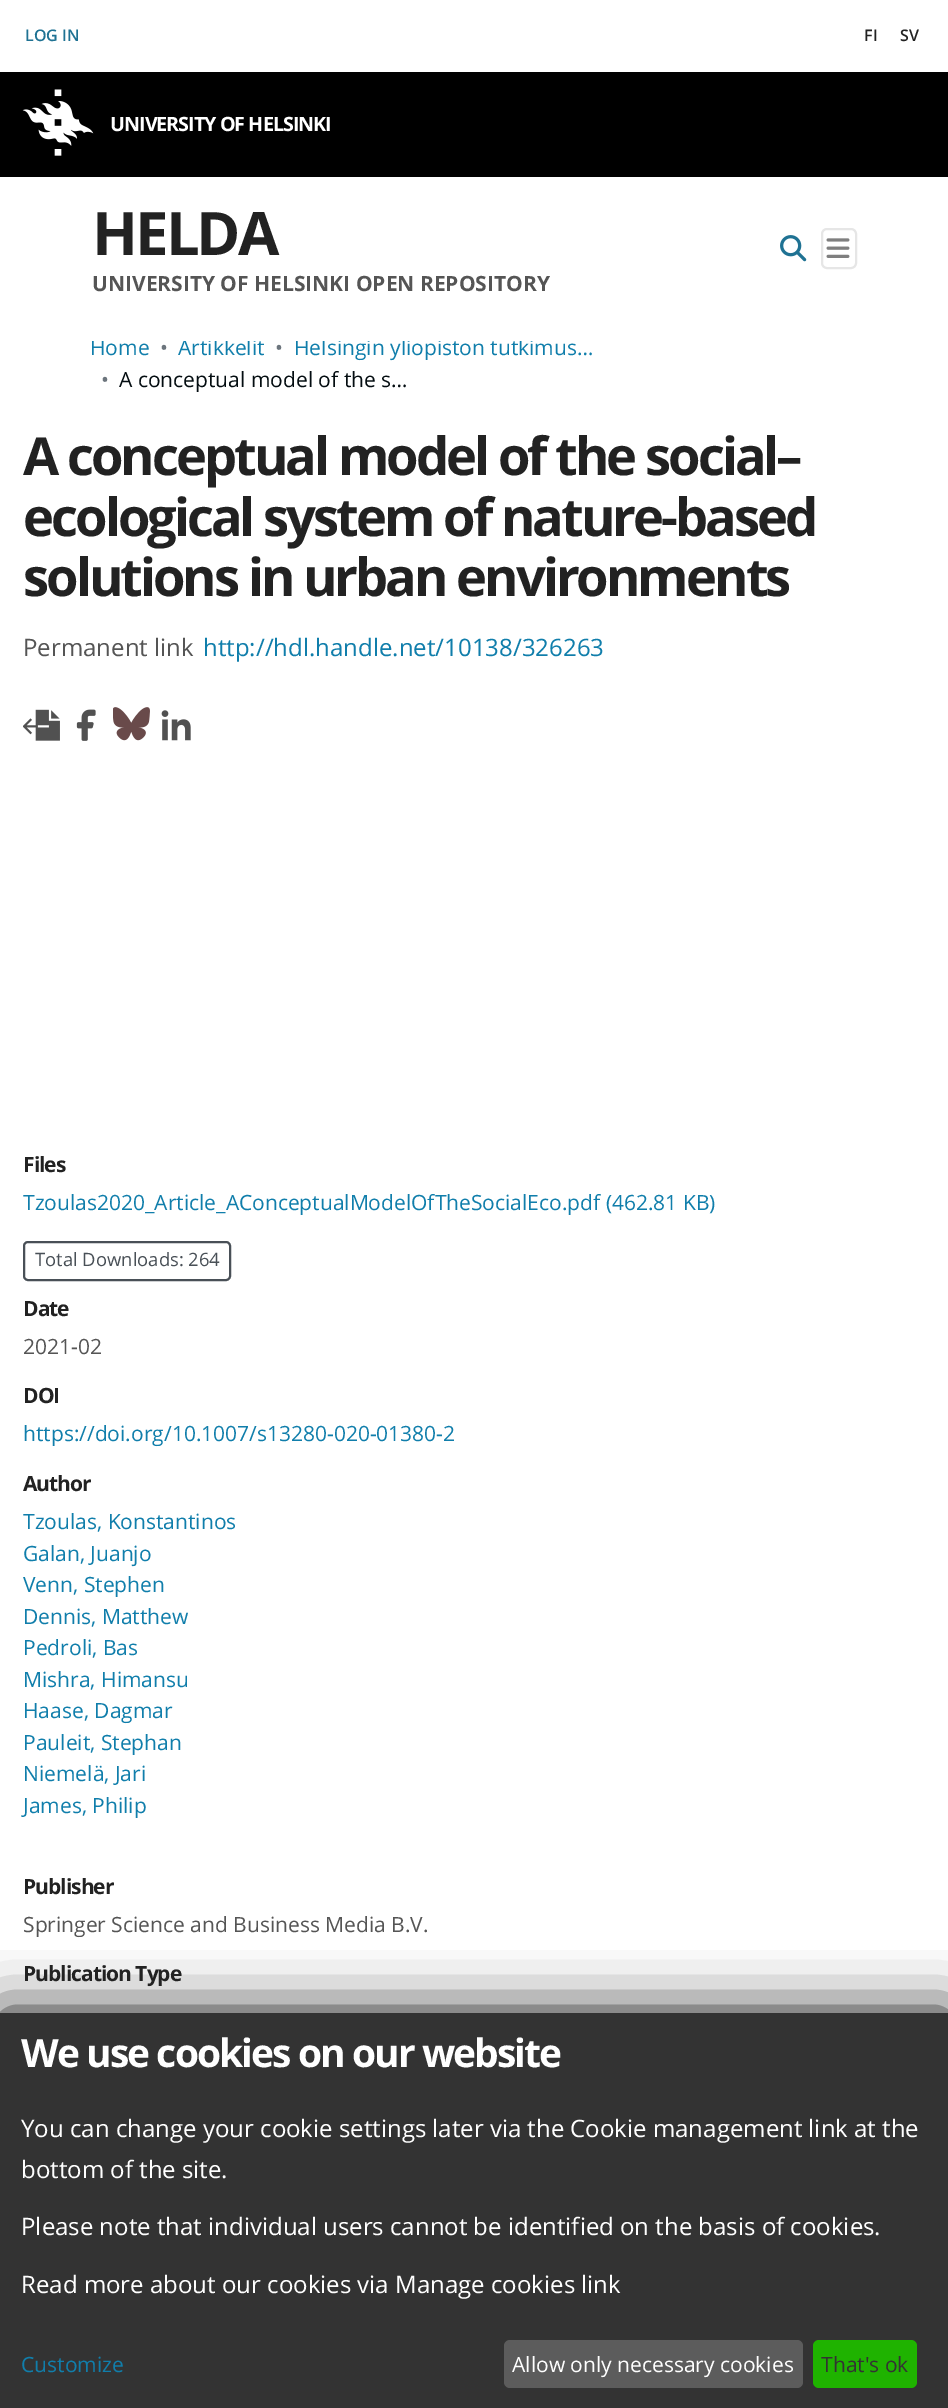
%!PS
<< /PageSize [948 2408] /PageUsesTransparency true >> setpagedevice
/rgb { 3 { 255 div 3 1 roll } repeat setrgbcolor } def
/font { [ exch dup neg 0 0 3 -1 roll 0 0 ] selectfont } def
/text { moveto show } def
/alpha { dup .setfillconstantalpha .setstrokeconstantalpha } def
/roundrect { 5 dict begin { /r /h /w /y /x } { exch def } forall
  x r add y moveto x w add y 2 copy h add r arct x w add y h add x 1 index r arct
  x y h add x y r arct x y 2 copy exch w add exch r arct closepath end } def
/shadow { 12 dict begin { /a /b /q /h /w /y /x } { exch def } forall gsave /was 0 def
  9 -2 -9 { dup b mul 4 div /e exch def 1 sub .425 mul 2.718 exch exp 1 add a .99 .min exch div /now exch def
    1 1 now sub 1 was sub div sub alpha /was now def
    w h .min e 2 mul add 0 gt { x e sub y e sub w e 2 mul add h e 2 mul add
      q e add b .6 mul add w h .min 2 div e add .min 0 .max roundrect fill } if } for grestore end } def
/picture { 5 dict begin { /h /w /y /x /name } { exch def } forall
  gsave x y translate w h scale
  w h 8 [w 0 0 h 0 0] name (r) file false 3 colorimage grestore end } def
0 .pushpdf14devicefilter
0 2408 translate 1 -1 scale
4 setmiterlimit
255 255 255 rgb
0 0 948 2408 rectfill
0 0 0 rgb
0 72 948 105 rectfill
(img_01.rgb) 22 89 72 67 picture
(img_02.rgb) 780 235 27 27 picture
230 230 230 rgb
2 setlinewidth
822 229 34 39 5 roundrect stroke
(img_03.rgb) 826 238 24 20 picture
(img_04.rgb) 23 709 37 32 picture
(img_05.rgb) 76 709 20 32 picture
(img_06.rgb) 113 707 37 34 picture
(img_07.rgb) 161 710 30 31 picture
73 80 87 rgb
24 1242 206 38 4 roundrect stroke
51 51 51 rgb
0 2013 948 395 rectfill
gsave
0 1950 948 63 rectclip
18 18 18 rgb
0 2012 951 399 0 30 1 shadow
grestore
92 92 92 rgb
504 2340 299 48 6 roundrect fill
31 179 0 rgb
813 2340 104 48 6 roundrect fill
/OpenSans-SemiBold 16 font
31 114 147 rgb
(LOG IN) 25 41 text
34 34 34 rgb
(FI) 864 41 text
(SV) 900 41 text
/OpenSans-Bold 19.75 font
255 255 255 rgb
110 131 moveto -1 0 (UNIVERSITY OF HELSINKI) ashow
/OpenSans-Bold 60 font
34 34 34 rgb
92 255 moveto -3 0 (HELDA) ashow
/OpenSans-Bold 21 font
85 85 85 rgb
(UNIVERSITY OF HELSINKI OPEN REPOSITORY) 92 291 text
/OpenSans-Regular 21 font
16 126 171 rgb
(Home) 90 355 text
108 117 125 rgb
(•) 160 355 text
16 126 171 rgb
(Artikkelit) 178 355 text
108 117 125 rgb
(•) 275 355 text
16 126 171 rgb
(Helsingin yliopiston tutkimus…) 294 355 text
255 255 255 rgb
92 339 441 2 rectfill
108 117 125 rgb
(•) 101 387 text
4 13 17 rgb
(A conceptual model of the s…) 119 387 text
/OpenSans-Bold 52.5 font
34 34 34 rgb
23 475 moveto -3 0 (A conceptual model of the social–) ashow
23 536 moveto -3 0 (ecological system of nature-based) ashow
23 596 moveto -3 0 (solutions in urban environments) ashow
/OpenSans-Regular 24 font
85 85 85 rgb
(Permanent link) 23 656 text
16 126 171 rgb
(http://hdl.handle.net/10138/326263) 203 656 text
/OpenSans-Bold 21 font
34 34 34 rgb
23 1172 moveto -1 0 (Files) ashow
/OpenSans-Regular 21 font
16 126 171 rgb
(Tzoulas2020_Article_AConceptualModelOfTheSocialEco.pdf \(462.81 KB\)) 23 1210 text
/OpenSans-Regular 18.4 font
73 80 87 rgb
(Total Downloads: 264) 35 1266 text
/OpenSans-Bold 21 font
34 34 34 rgb
23 1316 moveto -1 0 (Date) ashow
/OpenSans-Regular 21 font
85 85 85 rgb
(2021-02) 23 1354 text
/OpenSans-Bold 21 font
34 34 34 rgb
23 1403 moveto -1 0 (DOI) ashow
/OpenSans-Regular 21 font
16 126 171 rgb
(https://doi.org/10.1007/s13280-020-01380-2) 23 1441 text
/OpenSans-Bold 21 font
34 34 34 rgb
23 1491 moveto -1 0 (Author) ashow
/OpenSans-Regular 21 font
16 126 171 rgb
(Tzoulas, Konstantinos) 23 1529 text
(Galan, Juanjo) 23 1561 text
(Venn, Stephen) 23 1592 text
(Dennis, Matthew) 23 1624 text
(Pedroli, Bas) 23 1655 text
(Mishra, Himansu) 23 1687 text
(Haase, Dagmar) 23 1718 text
(Pauleit, Stephan) 23 1750 text
(Niemelä, Jari) 23 1781 text
(James, Philip) 23 1813 text
/OpenSans-Bold 21 font
34 34 34 rgb
23 1894 moveto -1 0 (Publisher) ashow
/OpenSans-Regular 21 font
85 85 85 rgb
(Springer Science and Business Media B.V.) 23 1932 text
/OpenSans-Bold 21 font
34 34 34 rgb
23 1981 moveto -1 0 (Publication Type) ashow
/OpenSans-Bold 39 font
255 255 255 rgb
21 2067 moveto -1.95 0 (We use cookies on our website) ashow
/OpenSans-Regular 24 font
(You can change your cookie settings later via the Cookie management link at the) 21 2137 text
(bottom of the site.) 21 2178 text
(Please note that individual users cannot be identified on the basis of cookies.) 21 2235 text
(Read more about our cookies via Manage cookies link) 21 2293 text
/OpenSans-Regular 21 font
16 126 171 rgb
(Customize) 21 2372 text
255 255 255 rgb
(Allow only necessary cookies) 512 2372 text
51 51 51 rgb
(That's ok) 821 2372 text
.poppdf14devicefilter showpage
